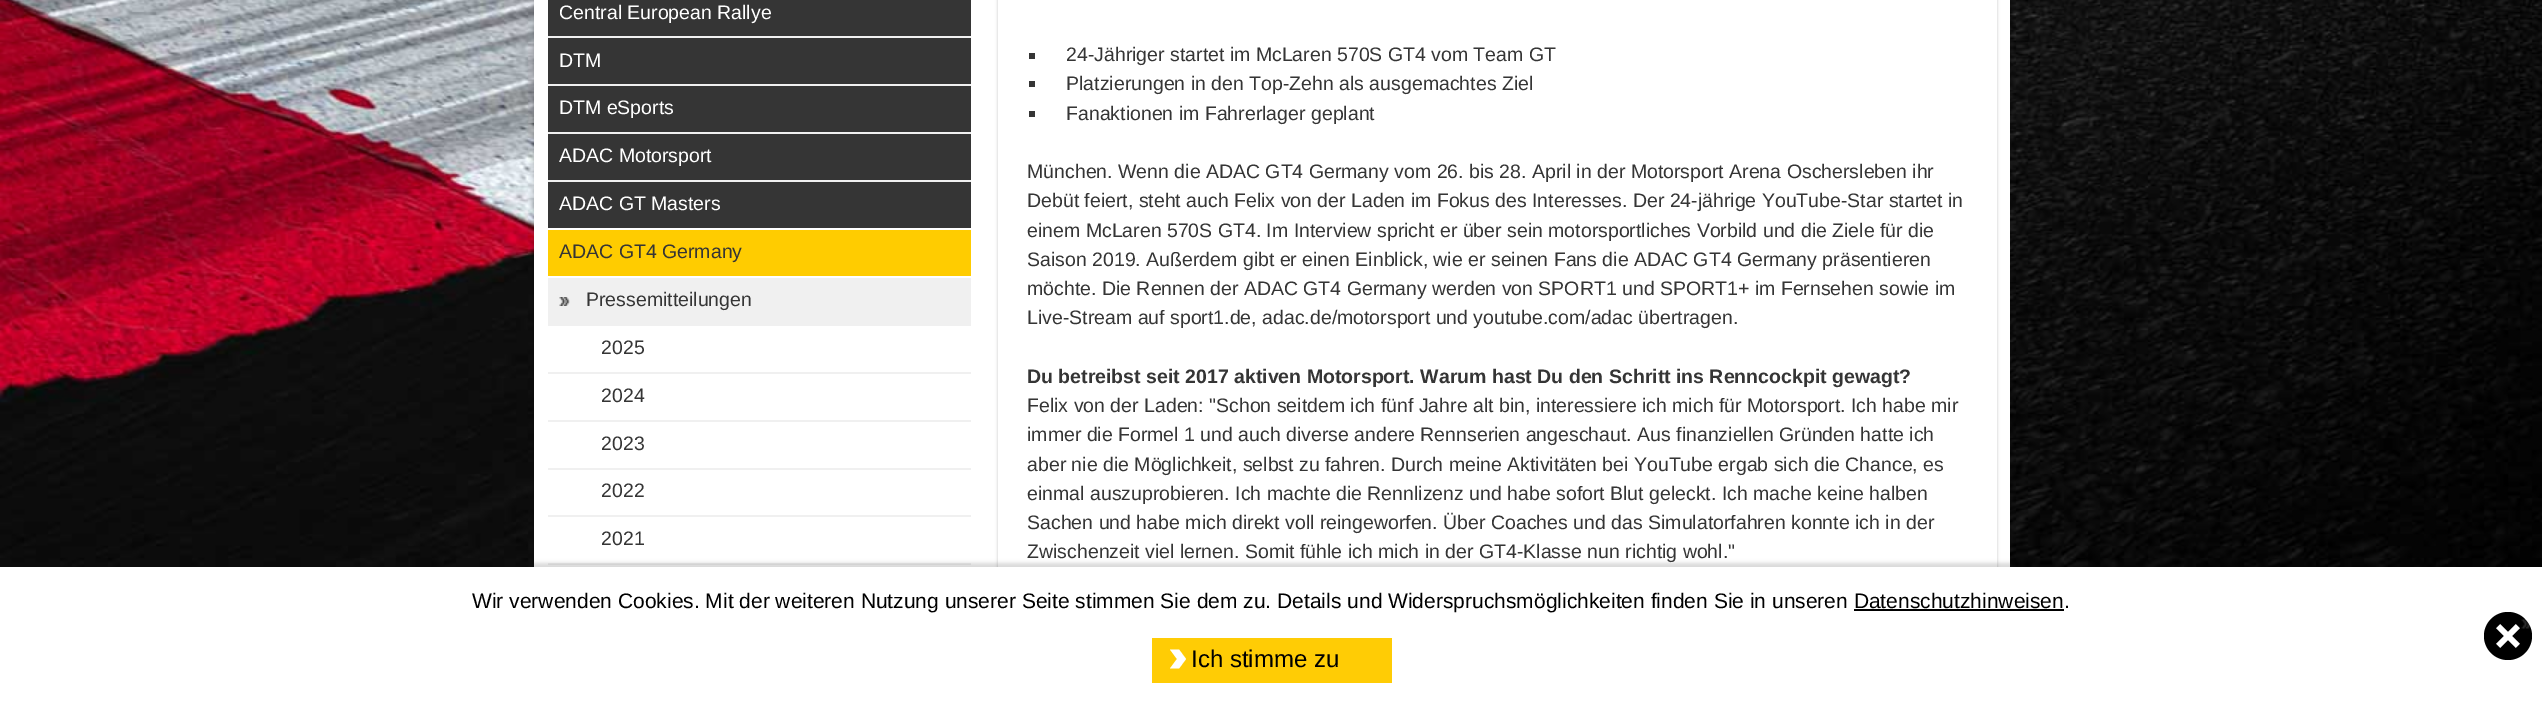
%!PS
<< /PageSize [2542 704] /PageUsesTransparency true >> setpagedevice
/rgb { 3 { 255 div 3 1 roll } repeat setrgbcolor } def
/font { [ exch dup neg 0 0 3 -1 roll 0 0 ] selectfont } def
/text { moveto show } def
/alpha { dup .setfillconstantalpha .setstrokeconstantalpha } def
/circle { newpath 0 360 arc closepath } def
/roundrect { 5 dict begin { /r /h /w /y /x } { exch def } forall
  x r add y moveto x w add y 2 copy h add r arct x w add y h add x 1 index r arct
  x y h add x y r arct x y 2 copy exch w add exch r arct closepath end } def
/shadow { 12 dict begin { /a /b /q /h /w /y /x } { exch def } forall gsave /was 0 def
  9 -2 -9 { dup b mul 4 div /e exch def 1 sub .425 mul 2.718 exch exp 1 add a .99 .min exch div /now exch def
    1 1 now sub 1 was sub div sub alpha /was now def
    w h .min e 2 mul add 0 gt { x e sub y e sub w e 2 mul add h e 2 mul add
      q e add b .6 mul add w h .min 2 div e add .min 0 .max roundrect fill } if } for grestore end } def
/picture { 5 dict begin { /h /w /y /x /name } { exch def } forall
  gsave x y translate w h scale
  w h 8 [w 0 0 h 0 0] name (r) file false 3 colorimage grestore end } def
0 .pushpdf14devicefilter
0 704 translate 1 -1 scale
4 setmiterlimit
255 255 255 rgb
0 0 2542 704 rectfill
(img_01.rgb) 0 0 2542 567 picture
0 0 0 rgb
534 -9 1476 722 0 3 0.25 shadow
255 255 255 rgb
534 0 1476 567 rectfill
53 53 53 rgb
548 0 423 36 rectfill
548 38 423 46 rectfill
240 240 240 rgb
548 36 423 2 rectfill
53 53 53 rgb
548 86 423 46 rectfill
240 240 240 rgb
548 84 423 2 rectfill
53 53 53 rgb
548 134 423 46 rectfill
240 240 240 rgb
548 132 423 2 rectfill
53 53 53 rgb
548 182 423 46 rectfill
240 240 240 rgb
548 180 423 2 rectfill
255 204 0 rgb
548 230 423 46 rectfill
240 240 240 rgb
548 278 423 48 rectfill
(img_02.rgb) 559 297 11 9 picture
548 372 423 2 rectfill
548 420 423 2 rectfill
548 468 423 2 rectfill
548 515 423 2 rectfill
548 563 423 2 rectfill
gsave
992 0 moveto 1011 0 rlineto 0 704 rlineto -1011 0 rlineto closepath 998 -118 moveto 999 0 rlineto 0 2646 rlineto -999 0 rlineto closepath eoclip newpath
0 0 0 rgb
998 -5 999 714 0 1.5 0.2 shadow
grestore
53 53 53 rgb
1029 53 6 6 rectfill
1029 81 6 6 rectfill
1029 111 6 6 rectfill
0 0 0 rgb
0 563 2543 138 0 2 0.15 shadow
255 255 255 rgb
0 567 2542 137 rectfill
0 0 0 rgb
1854 609 210 2 rectfill
255 204 5 rgb
1152 638 240 45 rectfill
255 255 255 rgb
1170 668.5 moveto 7 -9.5 rlineto -7 -9.5 rlineto 9 0 rlineto 7 9.5 rlineto -7 9.5 rlineto closepath fill
0 0 0 rgb
2508 636 24 circle fill
(img_03.rgb) 2521 619 9 10 picture
(img_04.rgb) 2496 624 24 24 picture
/LiberationSans-Regular 19.5 font
255 255 255 rgb
(Central European Rallye) 559 19 text
(DTM) 559 67 text
(DTM eSports) 559 114 text
(ADAC Motorsport) 559 162 text
(ADAC GT Masters) 559 210 text
53 53 53 rgb
(ADAC GT4 Germany) 559 258 text
(Pressemitteilungen) 586 306 text
(2025) 601 354 text
(2024) 601 402 text
(2023) 601 450 text
(2022) 601 497 text
(2021) 601 545 text
(24-Jähriger startet im McLaren 570S GT4 vom Team GT) 1066 61 text
(Platzierungen in den Top-Zehn als ausgemachtes Ziel) 1066 90 text
(Fanaktionen im Fahrerlager geplant) 1066 120 text
(München. Wenn die ADAC GT4 Germany vom 26. bis 28. April in der Motorsport Arena Oschersleben ihr) 1027 178 text
(Debüt feiert, steht auch Felix von der Laden im Fokus des Interesses. Der 24-jährige YouTube-Star startet in) 1027 207 text
(einem McLaren 570S GT4. Im Interview spricht er über sein motorsportliches Vorbild und die Ziele für die) 1027 237 text
(Saison 2019. Außerdem gibt er einen Einblick, wie er seinen Fans die ADAC GT4 Germany präsentieren) 1027 266 text
(möchte. Die Rennen der ADAC GT4 Germany werden von SPORT1 und SPORT1+ im Fernsehen sowie im) 1027 295 text
(Live-Stream auf sport1.de, adac.de/motorsport und youtube.com/adac übertragen.) 1027 324 text
/LiberationSans-Bold 19.5 font
(Du betreibst seit 2017 aktiven Motorsport. Warum hast Du den Schritt ins Renncockpit gewagt?) 1027 383 text
/LiberationSans-Regular 19.5 font
(Felix von der Laden: "Schon seitdem ich fünf Jahre alt bin, interessiere ich mich für Motorsport. Ich habe mir) 1027 412 text
(immer die Formel 1 und auch diverse andere Rennserien angeschaut. Aus finanziellen Gründen hatte ich) 1027 441 text
(aber nie die Möglichkeit, selbst zu fahren. Durch meine Aktivitäten bei YouTube ergab sich die Chance, es) 1027 471 text
(einmal auszuprobieren. Ich machte die Rennlizenz und habe sofort Blut geleckt. Ich mache keine halben) 1027 500 text
(Sachen und habe mich direkt voll reingeworfen. Über Coaches und das Simulatorfahren konnte ich in der) 1027 529 text
(Zwischenzeit viel lernen. Somit fühle ich mich in der GT4-Klasse nun richtig wohl.") 1027 558 text
/LiberationSans-Regular 21 font
0 0 0 rgb
(Wir verwenden Cookies. Mit der weiteren Nutzung unserer Seite stimmen Sie dem zu. Details und Widerspruchsmöglichkeiten finden Sie in unseren Datenschutzhinweisen.) 472 608 text
/LiberationSans-Regular 24 font
(Ich stimme zu) 1191 667 text
.poppdf14devicefilter showpage
